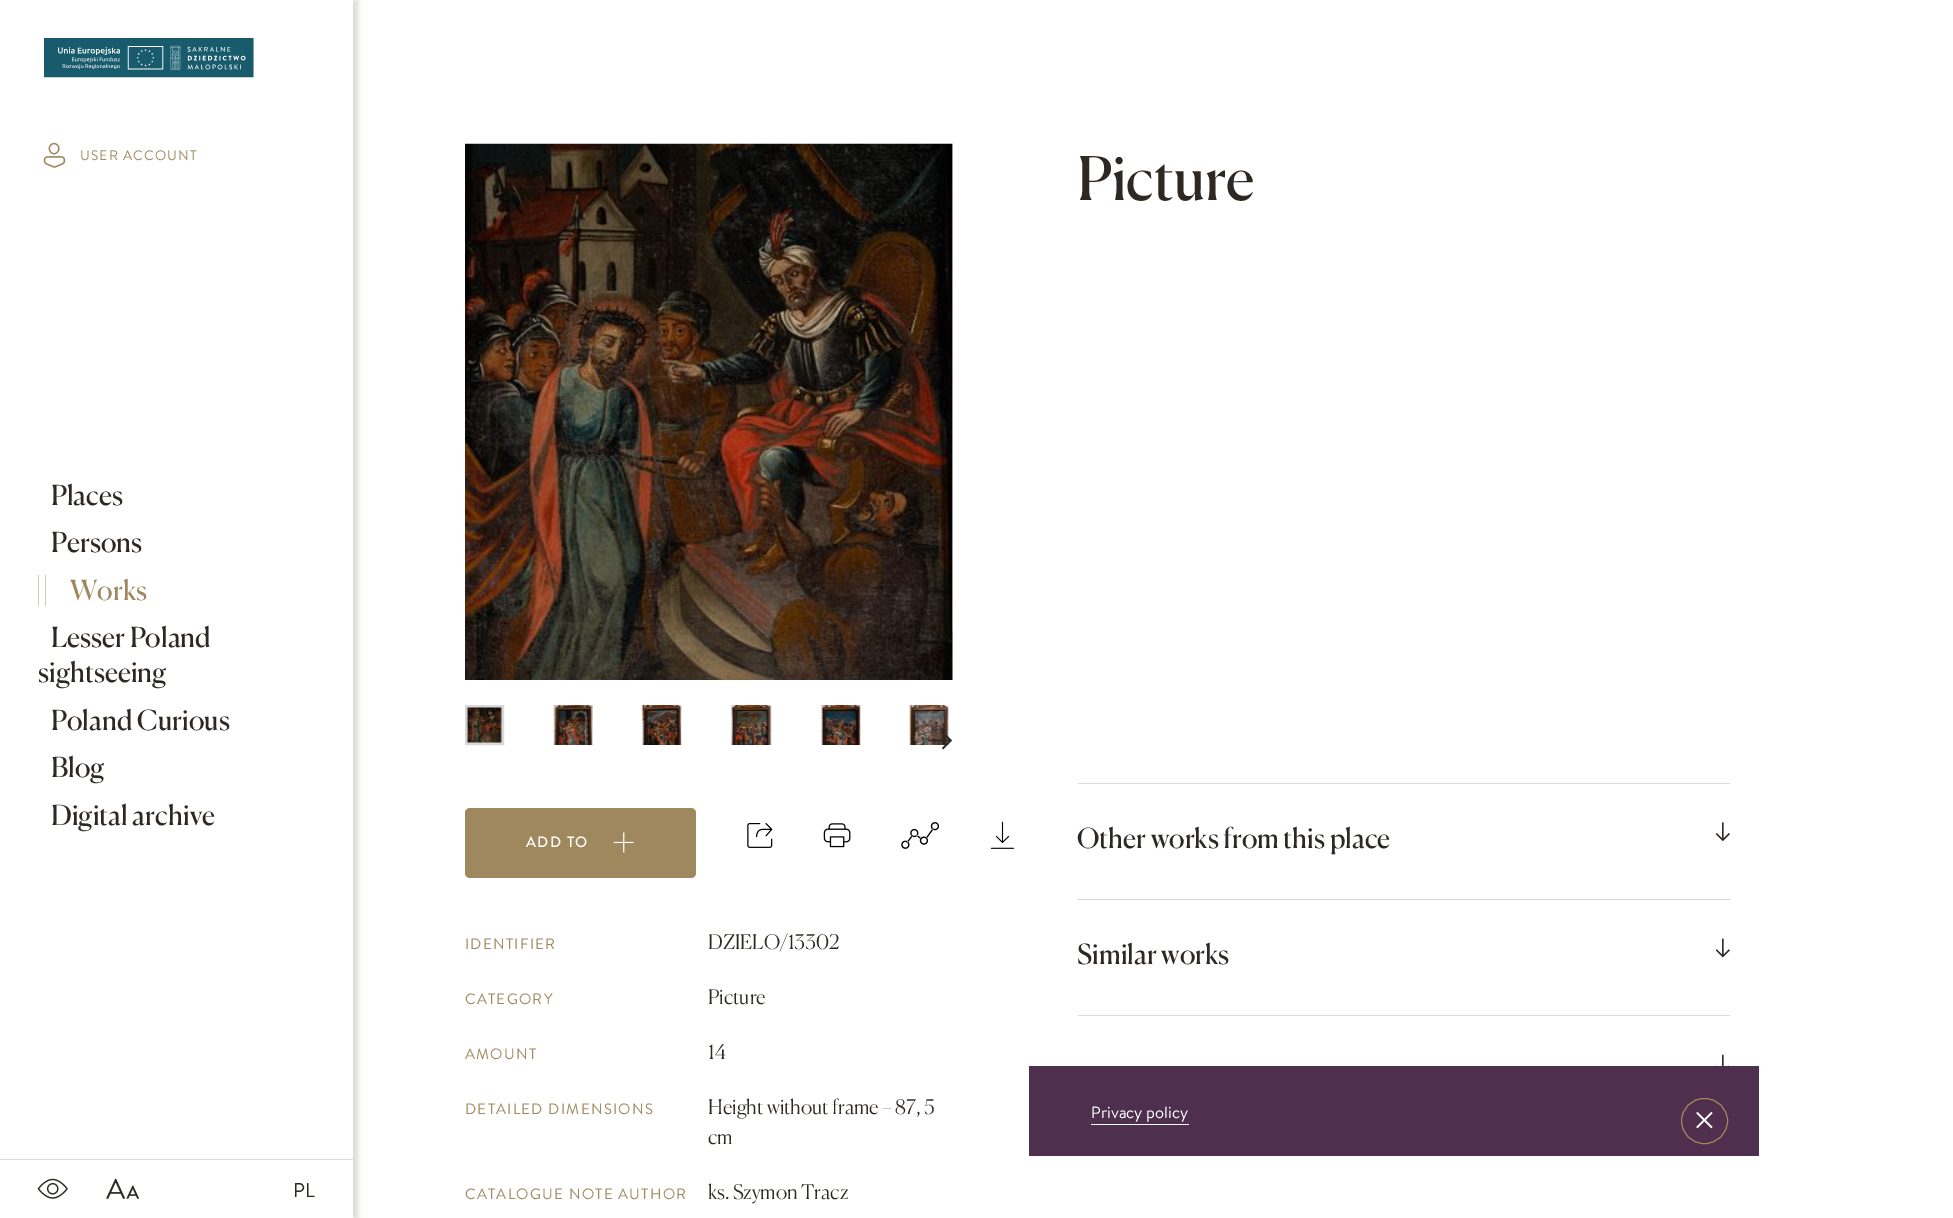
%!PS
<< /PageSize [1953 1218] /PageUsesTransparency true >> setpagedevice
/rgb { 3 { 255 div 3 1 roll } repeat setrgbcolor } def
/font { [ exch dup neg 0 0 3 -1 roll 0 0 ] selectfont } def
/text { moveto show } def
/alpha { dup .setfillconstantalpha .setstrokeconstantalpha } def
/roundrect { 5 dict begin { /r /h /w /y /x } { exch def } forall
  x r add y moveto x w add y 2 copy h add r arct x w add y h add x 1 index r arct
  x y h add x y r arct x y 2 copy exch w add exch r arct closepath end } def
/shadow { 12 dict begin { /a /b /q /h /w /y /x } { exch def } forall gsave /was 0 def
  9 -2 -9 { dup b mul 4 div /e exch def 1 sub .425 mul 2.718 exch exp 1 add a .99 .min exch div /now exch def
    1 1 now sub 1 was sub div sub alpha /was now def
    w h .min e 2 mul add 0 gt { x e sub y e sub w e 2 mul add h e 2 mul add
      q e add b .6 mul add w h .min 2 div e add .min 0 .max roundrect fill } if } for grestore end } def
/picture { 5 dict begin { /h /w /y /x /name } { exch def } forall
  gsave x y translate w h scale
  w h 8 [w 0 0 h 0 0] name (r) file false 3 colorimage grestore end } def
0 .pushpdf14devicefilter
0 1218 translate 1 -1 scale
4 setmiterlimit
255 255 255 rgb
0 0 1953 1218 rectfill
gsave
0 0 moveto 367 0 rlineto 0 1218 rlineto -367 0 rlineto closepath 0 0 moveto 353 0 rlineto 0 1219 rlineto -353 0 rlineto closepath eoclip newpath
126 119 107 rgb
5 0 353 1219 0 2.5 0.25 shadow
grestore
(img_01.rgb) 44 38 210 40 picture
(img_02.rgb) 43 142 23 26 picture
213 203 184 rgb
45 575 1 31 rectfill
38 575 1 31 rectfill
217 217 217 rgb
0 1159 353 1 rectfill
(img_03.rgb) 37 1178 31 21 picture
(img_04.rgb) 106 1178 34 21 picture
(img_05.rgb) 465 143 488 537 picture
(img_06.rgb) 952 144 1 488 picture
3 setlinewidth
466.5 706.5 36 37 rectstroke
(img_07.rgb) 466 707 36 36 picture
(img_08.rgb) 553 705 40 40 picture
(img_09.rgb) 641 705 41 40 picture
(img_10.rgb) 730 705 42 40 picture
(img_11.rgb) 820 705 41 40 picture
(img_12.rgb) 909 705 40 40 picture
(img_13.rgb) 928 732 25 18 picture
160 136 94 rgb
465 808 231 70 5 roundrect fill
(img_14.rgb) 613 832 21 21 picture
(img_15.rgb) 747 823 26 25 picture
(img_16.rgb) 823 823 28 25 picture
(img_17.rgb) 901 822 39 27 picture
(img_18.rgb) 990 821 25 28 picture
217 217 217 rgb
1078 783 652 1 rectfill
(img_19.rgb) 1715 822 15 20 picture
1078 899 652 1 rectfill
(img_20.rgb) 1715 938 15 20 picture
1078 1015 652 1 rectfill
(img_21.rgb) 1716 1054 14 12 picture
78 47 77 rgb
1029 1066 730 90 rectfill
255 255 255 rgb
1091 1124 98 1 rectfill
160 136 94 rgb
1 setlinewidth
1681.5 1098.5 46 45 22.5 roundrect stroke
(img_22.rgb) 1696 1111 17 18 picture
/BrandonGrotesque-Regular 13.75 font
80 160 moveto 1.1 0 (USER ACCOUNT) ashow
/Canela-Regular 27.5 font
46 40 35 rgb
(Places) 51 505 text
(Persons) 51 552 text
160 136 94 rgb
(Works) 70 600 text
46 40 35 rgb
(Lesser Poland) 51 647 text
(sightseeing) 38 682 text
(Poland Curious) 51 730 text
(Blog) 51 777 text
(Digital archive) 51 825 text
/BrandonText-Regular 20 font
(PL) 293 1197 text
/Canela-Regular 60 font
(Picture) 1077 200 text
/BrandonGrotesque-Medium 15 font
255 255 255 rgb
526 847 moveto 1.25 0 (ADD TO) ashow
/BrandonGrotesque-Regular 15 font
160 136 94 rgb
465 949 moveto 1.25 0 (IDENTIFIER) ashow
/Canela-Light 20 font
46 40 35 rgb
(DZIELO/13302) 708 949 text
/BrandonGrotesque-Regular 15 font
160 136 94 rgb
465 1004 moveto 1.25 0 (CATEGORY) ashow
/Canela-Light 20 font
46 40 35 rgb
(Picture) 708 1004 text
/BrandonGrotesque-Regular 15 font
160 136 94 rgb
465 1059 moveto 1.25 0 (AMOUNT) ashow
/Canela-Light 20 font
46 40 35 rgb
(14) 708 1059 text
/BrandonGrotesque-Regular 15 font
160 136 94 rgb
465 1114 moveto 1.25 0 (DETAILED DIMENSIONS) ashow
/Canela-Light 20 font
46 40 35 rgb
(Height without frame – 87, 5) 708 1114 text
(cm) 708 1144 text
/BrandonGrotesque-Regular 15 font
160 136 94 rgb
465 1199 moveto 1.25 0 (CATALOGUE NOTE AUTHOR) ashow
/Canela-Light 20 font
46 40 35 rgb
(ks. Szymon Tracz) 708 1199 text
/Canela-Regular 27.5 font
(Other works from this place) 1077 848 text
(Similar works) 1077 964 text
/BrandonText-Regular 16.25 font
255 255 255 rgb
(Privacy policy) 1091 1118 text
.poppdf14devicefilter showpage
